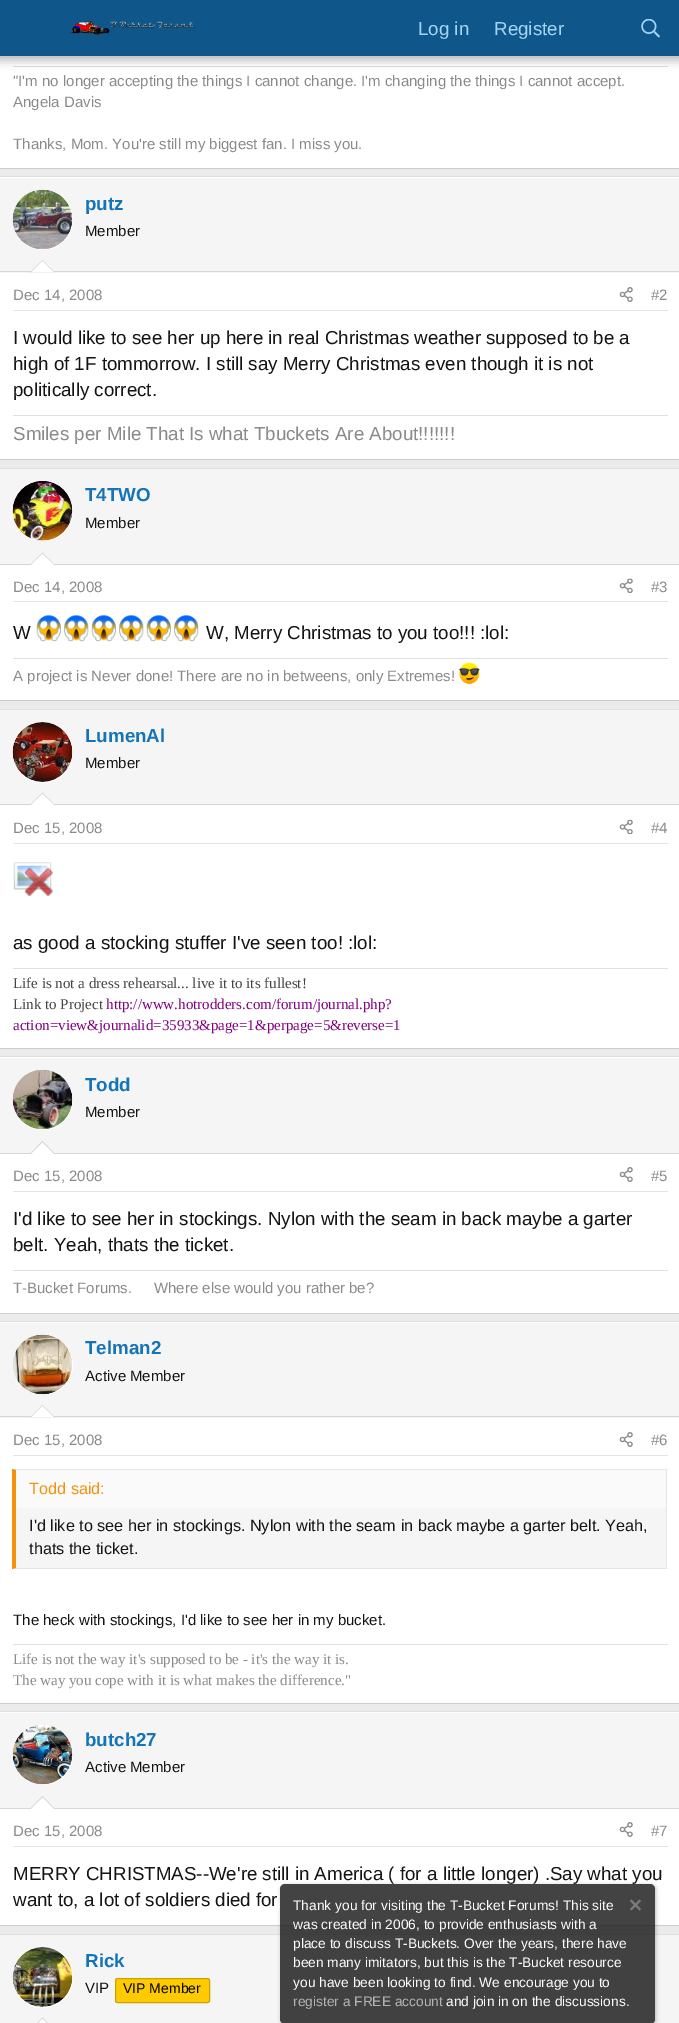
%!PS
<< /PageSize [679 2023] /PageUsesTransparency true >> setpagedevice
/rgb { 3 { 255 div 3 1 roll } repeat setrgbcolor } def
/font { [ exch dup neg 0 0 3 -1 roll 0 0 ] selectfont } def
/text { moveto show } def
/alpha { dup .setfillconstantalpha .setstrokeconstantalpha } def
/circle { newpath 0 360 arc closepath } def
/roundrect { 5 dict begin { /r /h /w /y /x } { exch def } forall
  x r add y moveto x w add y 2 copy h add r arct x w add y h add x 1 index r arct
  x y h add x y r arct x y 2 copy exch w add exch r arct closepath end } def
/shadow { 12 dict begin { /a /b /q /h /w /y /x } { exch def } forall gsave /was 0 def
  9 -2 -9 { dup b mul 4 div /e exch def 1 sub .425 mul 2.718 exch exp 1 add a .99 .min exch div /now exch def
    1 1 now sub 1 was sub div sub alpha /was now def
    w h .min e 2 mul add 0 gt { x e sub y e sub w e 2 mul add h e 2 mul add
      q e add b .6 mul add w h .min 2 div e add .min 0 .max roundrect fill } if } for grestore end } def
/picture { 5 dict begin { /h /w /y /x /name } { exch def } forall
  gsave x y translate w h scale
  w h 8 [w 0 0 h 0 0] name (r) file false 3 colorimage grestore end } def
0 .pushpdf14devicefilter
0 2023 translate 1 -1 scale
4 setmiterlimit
235 235 235 rgb
0 0 679 2023 rectfill
255 255 255 rgb
0 56 679 112 rectfill
224 224 224 rgb
13 66 655 1 rectfill
0 0 0 rgb
-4 -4 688 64 0 5 0.3 shadow
15 87 138 rgb
0 0 679 56 rectfill
(img_01.rgb) 71 21 124 14 picture
(img_02.rgb) 641 19 19 19 picture
204 204 204 rgb
0 168 679 1 rectfill
255 255 255 rgb
0 177 679 282 rectfill
224 224 224 rgb
0 176 679 1 rectfill
204 204 204 rgb
0 459 679 1 rectfill
245 245 245 rgb
0 178 679 95 rectfill
214 214 214 rgb
0 271 679 1 rectfill
255 255 255 rgb
43 220 30 circle fill
(img_03.rgb) 12 189 61 61 picture
214 214 214 rgb
55 272.5 moveto -25 0 rlineto 12.5 -12.5 rlineto closepath fill
255 255 255 rgb
54 272.5 moveto -23 0 rlineto 11.5 -11.5 rlineto closepath fill
229 229 229 rgb
13 310 655 1 rectfill
(img_04.rgb) 619 287 14 15 picture
224 224 224 rgb
13 415 655 1 rectfill
255 255 255 rgb
0 565 679 135 rectfill
224 224 224 rgb
0 468 679 1 rectfill
204 204 204 rgb
0 700 679 1 rectfill
245 245 245 rgb
0 469 679 95 rectfill
214 214 214 rgb
0 564 679 1 rectfill
255 255 255 rgb
43 511 30 circle fill
(img_05.rgb) 12 481 61 60 picture
214 214 214 rgb
55 565 moveto -25 0 rlineto 12.5 -12.5 rlineto closepath fill
255 255 255 rgb
54 565 moveto -23 0 rlineto 11.5 -11 rlineto closepath fill
229 229 229 rgb
13 601 655 1 rectfill
(img_06.rgb) 619 578 14 15 picture
(img_07.rgb) 36 615 25 27 picture
(img_08.rgb) 64 615 25 27 picture
(img_07.rgb) 91 615 25 27 picture
(img_08.rgb) 119 615 25 27 picture
(img_07.rgb) 146 615 25 27 picture
(img_08.rgb) 174 615 25 27 picture
224 224 224 rgb
13 658 655 1 rectfill
(img_09.rgb) 459 662 21 22 picture
255 255 255 rgb
0 805 679 243 rectfill
224 224 224 rgb
0 709 679 1 rectfill
204 204 204 rgb
0 1048 679 1 rectfill
245 245 245 rgb
0 710 679 94 rectfill
214 214 214 rgb
0 804 679 1 rectfill
255 255 255 rgb
43 753 30 circle fill
(img_10.rgb) 12 722 61 60 picture
214 214 214 rgb
55 805 moveto -25 0 rlineto 12.5 -12.5 rlineto closepath fill
255 255 255 rgb
54 805 moveto -23 0 rlineto 11.5 -11 rlineto closepath fill
229 229 229 rgb
13 843 655 1 rectfill
(img_11.rgb) 619 819 14 16 picture
(img_12.rgb) 13 862 40 34 picture
224 224 224 rgb
13 968 655 1 rectfill
255 255 255 rgb
0 1057 679 256 rectfill
224 224 224 rgb
0 1056 679 1 rectfill
204 204 204 rgb
0 1313 679 1 rectfill
245 245 245 rgb
0 1058 679 95 rectfill
214 214 214 rgb
0 1153 679 1 rectfill
255 255 255 rgb
43 1100 30 circle fill
(img_13.rgb) 12 1069 61 61 picture
214 214 214 rgb
55 1154 moveto -25 0 rlineto 12.5 -13 rlineto closepath fill
255 255 255 rgb
54 1154 moveto -23 0 rlineto 11.5 -11.5 rlineto closepath fill
229 229 229 rgb
13 1191 655 1 rectfill
(img_14.rgb) 619 1167 14 15 picture
224 224 224 rgb
13 1270 655 1 rectfill
255 255 255 rgb
0 1322 679 381 rectfill
224 224 224 rgb
0 1321 679 1 rectfill
204 204 204 rgb
0 1703 679 1 rectfill
245 245 245 rgb
0 1323 679 95 rectfill
214 214 214 rgb
0 1416 679 1 rectfill
255 255 255 rgb
43 1365 30 circle fill
(img_15.rgb) 13 1334 59 61 picture
214 214 214 rgb
55 1417.5 moveto -25 0 rlineto 12.5 -12.5 rlineto closepath fill
255 255 255 rgb
54 1417.5 moveto -23 0 rlineto 11.5 -11.5 rlineto closepath fill
229 229 229 rgb
13 1455 655 1 rectfill
(img_14.rgb) 619 1432 14 15 picture
245 245 245 rgb
16 1508 650 60 rectfill
229 229 229 rgb
12 1469 moveto 656 0 rlineto -2 1 rlineto -650 0 rlineto closepath fill
666 1469 1 100 rectfill
668 1569 moveto -656 0 rlineto 4 -1 rlineto 650 0 rlineto closepath fill
242 147 13 rgb
12 1569 moveto 0 -100 rlineto 4 1 rlineto 0 98 rlineto closepath fill
250 250 250 rgb
16 1470 650 38 rectfill
224 224 224 rgb
13 1644 655 1 rectfill
255 255 255 rgb
0 1712 679 213 rectfill
224 224 224 rgb
0 1711 679 1 rectfill
204 204 204 rgb
0 1925 679 1 rectfill
245 245 245 rgb
0 1713 679 95 rectfill
214 214 214 rgb
0 1808 679 1 rectfill
255 255 255 rgb
43 1755 30 circle fill
(img_16.rgb) 12 1725 61 60 picture
214 214 214 rgb
55 1809 moveto -25 0 rlineto 12.5 -13 rlineto closepath fill
255 255 255 rgb
54 1809 moveto -23 0 rlineto 11.5 -11.5 rlineto closepath fill
229 229 229 rgb
13 1846 655 1 rectfill
(img_17.rgb) 619 1822 14 15 picture
224 224 224 rgb
0 1934 679 1 rectfill
245 245 245 rgb
0 1935 679 88 rectfill
255 255 255 rgb
43 1978 30 circle fill
(img_18.rgb) 12 1947 61 60 picture
255 203 0 rgb
115.5 1978.5 94 24 2 roundrect gsave fill grestore
204 162 0 rgb
stroke
214 214 214 rgb
55 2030 moveto -25 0 rlineto 12.5 -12.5 rlineto closepath fill
255 255 255 rgb
54 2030 moveto -23 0 rlineto 11.5 -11 rlineto closepath fill
gsave
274 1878 moveto 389 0 rlineto 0 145 rlineto -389 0 rlineto closepath 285 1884 moveto 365 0 rlineto 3 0 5 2 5 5 rcurveto 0 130 rlineto 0 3 -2 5 -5 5 rcurveto -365 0 rlineto -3 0 -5 -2 -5 -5 rcurveto 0 -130 rlineto 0 -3 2 -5 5 -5 rcurveto closepath eoclip newpath
0 0 0 rgb
281 1885 375 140 5 2 0.25 shadow
grestore
0.8 alpha
20 20 20 rgb
280 1884 375 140 5 roundrect fill
1 alpha
(img_19.rgb) 630 1899 11 12 picture
/LiberationSans-Regular 18.75 font
163 212 245 rgb
(Log in) 418 35 text
(Register) 494 35 text
/LiberationSans-Regular 15 font
138 138 138 rgb
("I'm no longer accepting the things I cannot change. I'm changing the things I cannot accept.) 13 86 text
(Angela Davis) 13 107 text
(Thanks, Mom. You're still my biggest fan. I miss you.) 13 149 text
/LiberationSans-Bold 18.75 font
20 116 184 rgb
(putz) 85 210 text
/LiberationSans-Regular 15 font
20 20 20 rgb
(Member) 85 236 text
138 138 138 rgb
(Dec 14, 2008) 13 300 text
(#2) 651 300 text
/LiberationSans-Regular 18.75 font
20 20 20 rgb
(I would like to see her up here in real Christmas weather supposed to be a) 13 344 text
(high of 1F tommorrow. I still say Merry Christmas even though it is not) 13 370 text
(politically correct.) 13 396 text
138 138 138 rgb
(Smiles per Mile That Is what Tbuckets Are About!!!!!!!) 13 440 text
/LiberationSans-Bold 18.75 font
20 116 184 rgb
(T4TWO) 85 501 text
/LiberationSans-Regular 15 font
20 20 20 rgb
(Member) 85 528 text
138 138 138 rgb
(Dec 14, 2008) 13 592 text
(#3) 651 592 text
/LiberationSans-Regular 18.75 font
20 20 20 rgb
(W) 13 639 text
(W, Merry Christmas to you too!!! :lol:) 206 639 text
/LiberationSans-Regular 15 font
138 138 138 rgb
(A project is Never done! There are no in betweens, only Extremes!) 13 681 text
/LiberationSans-Bold 18.75 font
20 116 184 rgb
(LumenAl) 85 742 text
/LiberationSans-Regular 15 font
20 20 20 rgb
(Member) 85 768 text
138 138 138 rgb
(Dec 15, 2008) 13 833 text
(#4) 651 833 text
/LiberationSans-Regular 18.75 font
20 20 20 rgb
(as good a stocking stuffer I've seen too! :lol:) 13 949 text
/LiberationSerif-Regular 15 font
68 68 68 rgb
(Life is not a dress rehearsal... live it to its fullest!) 13 988 text
(Link to Project) 13 1009 text
128 0 128 rgb
(http://www.hotrodders.com/forum/journal.php?) 106 1009 text
(action=view&journalid=35933&page=1&perpage=5&reverse=1) 13 1030 text
/LiberationSans-Bold 18.75 font
20 116 184 rgb
(Todd) 85 1091 text
/LiberationSans-Regular 15 font
20 20 20 rgb
(Member) 85 1117 text
138 138 138 rgb
(Dec 15, 2008) 13 1181 text
(#5) 651 1181 text
/LiberationSans-Regular 18.75 font
20 20 20 rgb
(I'd like to see her in stockings. Nylon with the seam in back maybe a garter) 13 1225 text
(belt. Yeah, thats the ticket.) 13 1251 text
/LiberationSans-Regular 15 font
138 138 138 rgb
(T-Bucket Forums.) 13 1293 text
(Where else would you rather be?) 154 1293 text
/LiberationSans-Bold 18.75 font
20 116 184 rgb
(Telman2) 85 1354 text
/LiberationSans-Regular 15 font
20 20 20 rgb
(Active Member) 85 1381 text
138 138 138 rgb
(Dec 15, 2008) 13 1445 text
(#6) 651 1445 text
/LiberationSans-Regular 16.25 font
242 147 13 rgb
(Todd said:) 29 1494 text
20 20 20 rgb
(I'd like to see her in stockings. Nylon with the seam in back maybe a garter belt. Yeah,) 29 1531 text
(thats the ticket.) 29 1554 text
/LiberationSans-Regular 15 font
(The heck with stockings, I'd like to see her in my bucket.) 13 1625 text
/LiberationSerif-Regular 15 font
138 138 138 rgb
(Life is not the way it's supposed to be - it's the way it is.) 13 1664 text
(The way you cope with it is what makes the difference.") 13 1685 text
/LiberationSans-Bold 18.75 font
20 116 184 rgb
(butch27) 85 1746 text
/LiberationSans-Regular 15 font
20 20 20 rgb
(Active Member) 85 1772 text
138 138 138 rgb
(Dec 15, 2008) 13 1836 text
(#7) 651 1836 text
/LiberationSans-Regular 18.75 font
20 20 20 rgb
(MERRY CHRISTMAS--We're still in America \( for a little longer\) .Say what you) 13 1880 text
(want to, a lot of soldiers died for) 13 1906 text
/LiberationSans-Bold 18.75 font
20 116 184 rgb
(Rick) 85 1967 text
/LiberationSans-Regular 15 font
20 20 20 rgb
(VIP) 85 1993 text
/LiberationSans-Regular 14 font
0 0 0 rgb
(VIP Member) 123 1993 text
/LiberationSans-Regular 13.75 font
254 254 254 rgb
(Thank you for visiting the T-Bucket Forums! This site) 293 1910 text
(was created in 2006, to provide enthusiasts with a) 293 1929 text
(place to discuss T-Buckets. Over the years, there have) 293 1948 text
(been many imitators, but this is the T-Bucket resource) 293 1967 text
(you have been looking to find. We encourage you to) 293 1987 text
180 180 180 rgb
(register a FREE account) 293 2006 text
254 254 254 rgb
(and join in on the discussions.) 446 2006 text
.poppdf14devicefilter showpage
